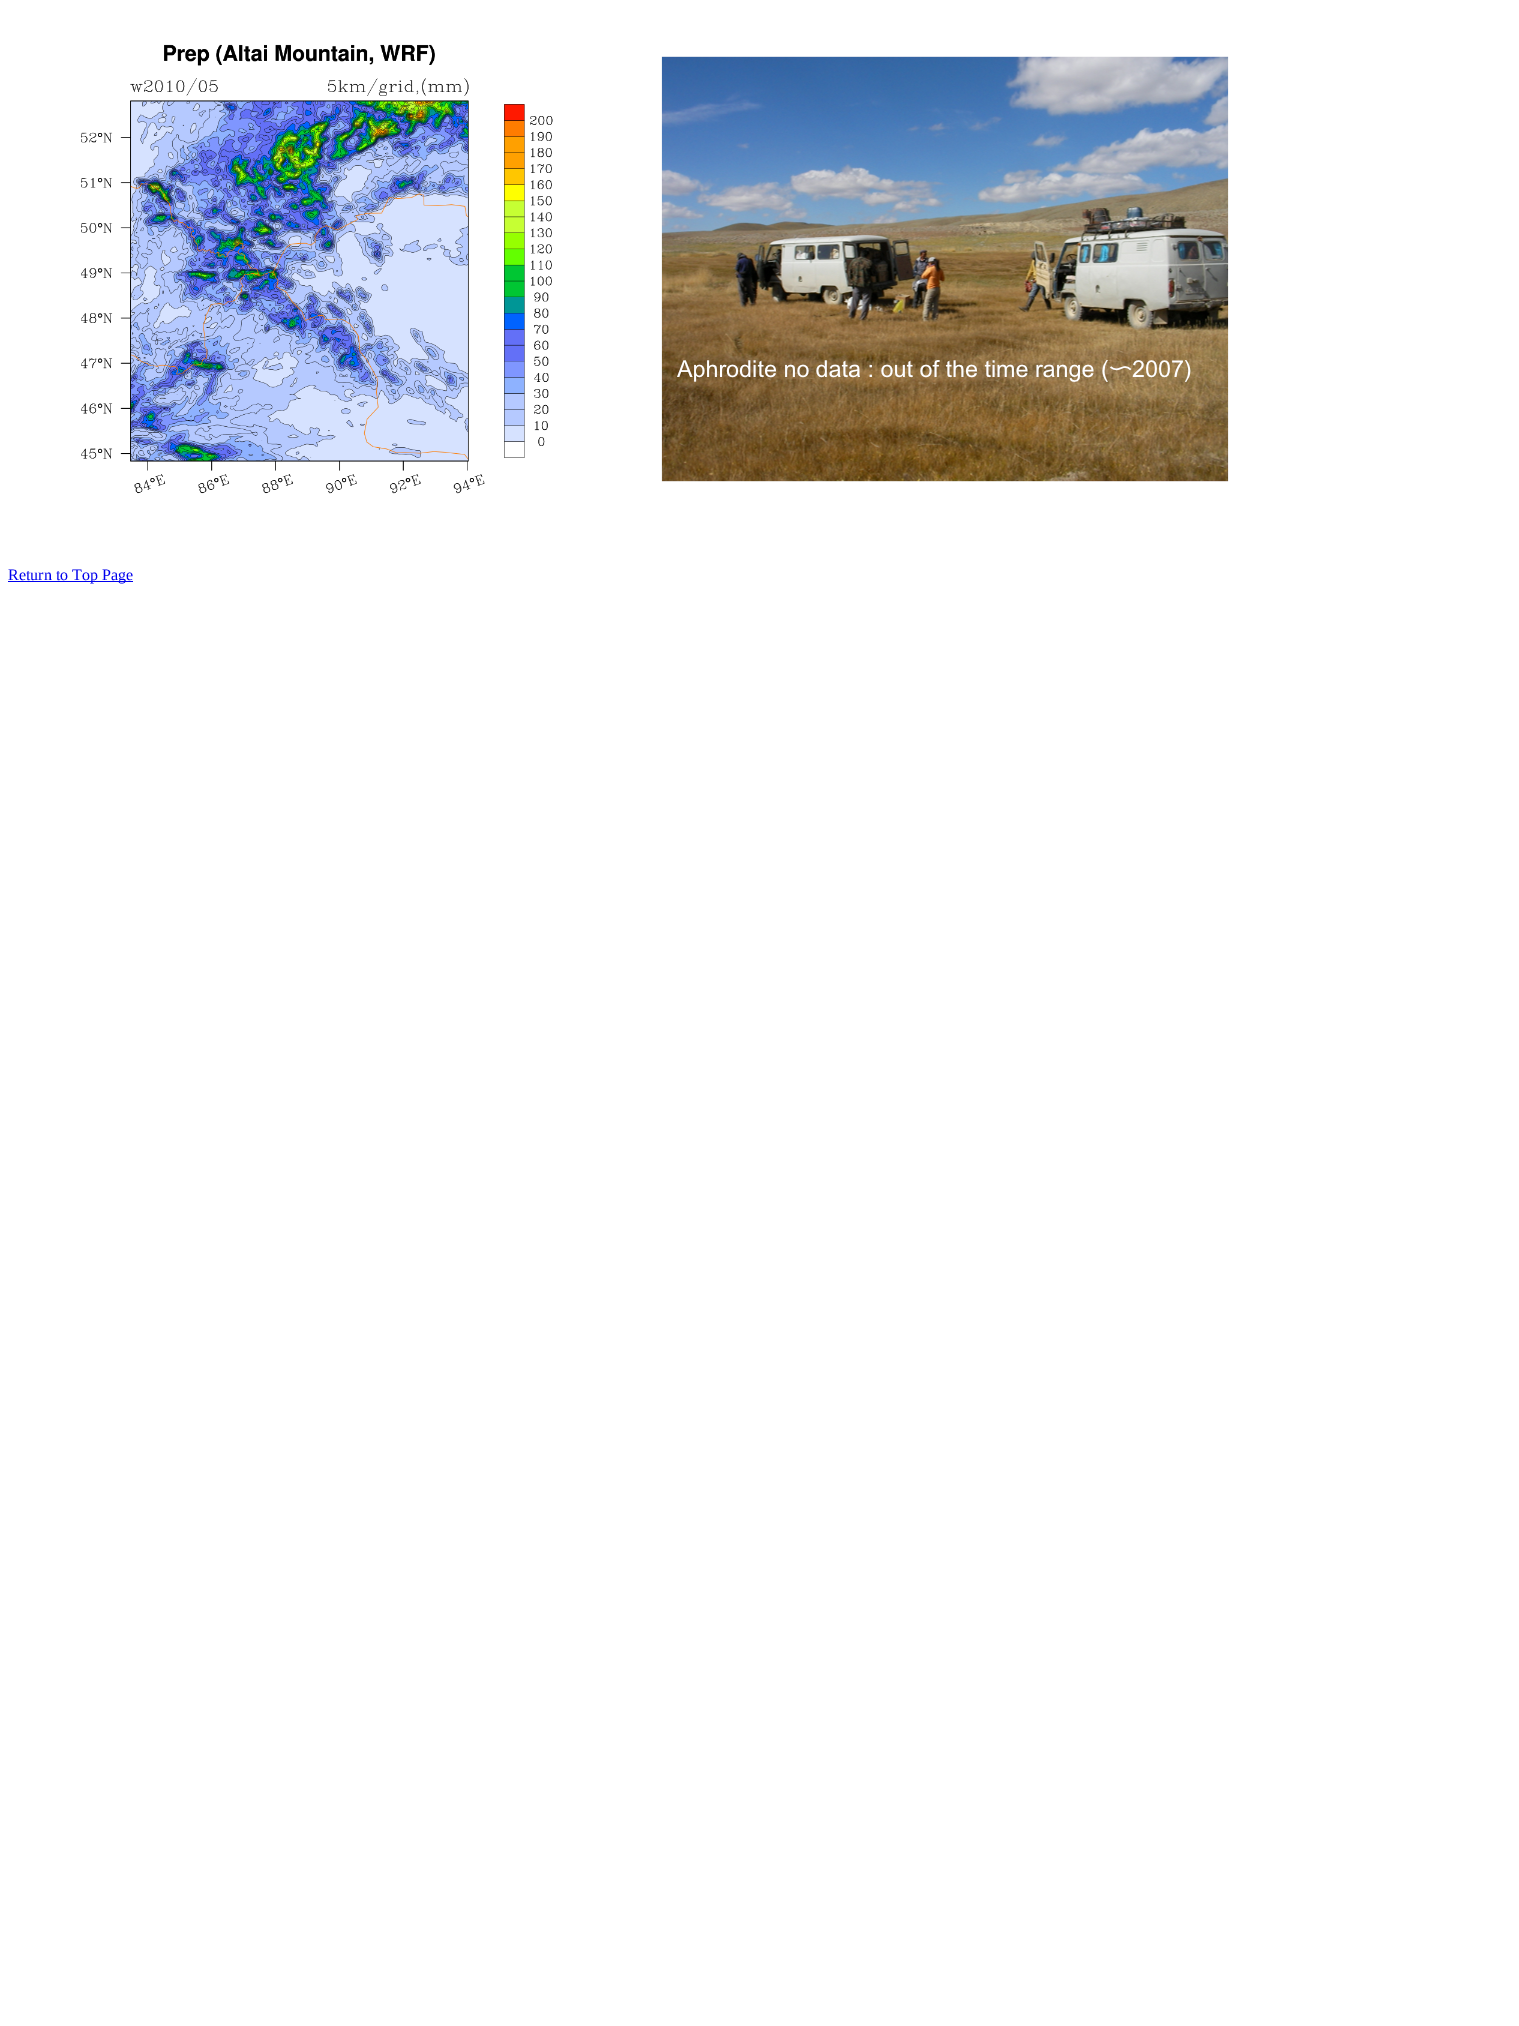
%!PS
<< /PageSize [1519 2026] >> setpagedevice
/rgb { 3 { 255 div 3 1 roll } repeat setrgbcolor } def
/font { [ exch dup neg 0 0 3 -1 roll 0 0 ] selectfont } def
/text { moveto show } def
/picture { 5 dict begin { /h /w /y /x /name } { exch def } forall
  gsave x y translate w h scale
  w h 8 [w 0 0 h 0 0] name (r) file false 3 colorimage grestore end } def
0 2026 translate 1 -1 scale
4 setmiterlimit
255 255 255 rgb
0 0 1519 2026 rectfill
(img_01.rgb) 81 44 472 450 picture
(img_02.rgb) 661 56 568 426 picture
0 0 238 rgb
8 581 125 1 rectfill
/LiberationSerif-Regular 16 font
(Return to Top Page) 8 580 text
showpage
